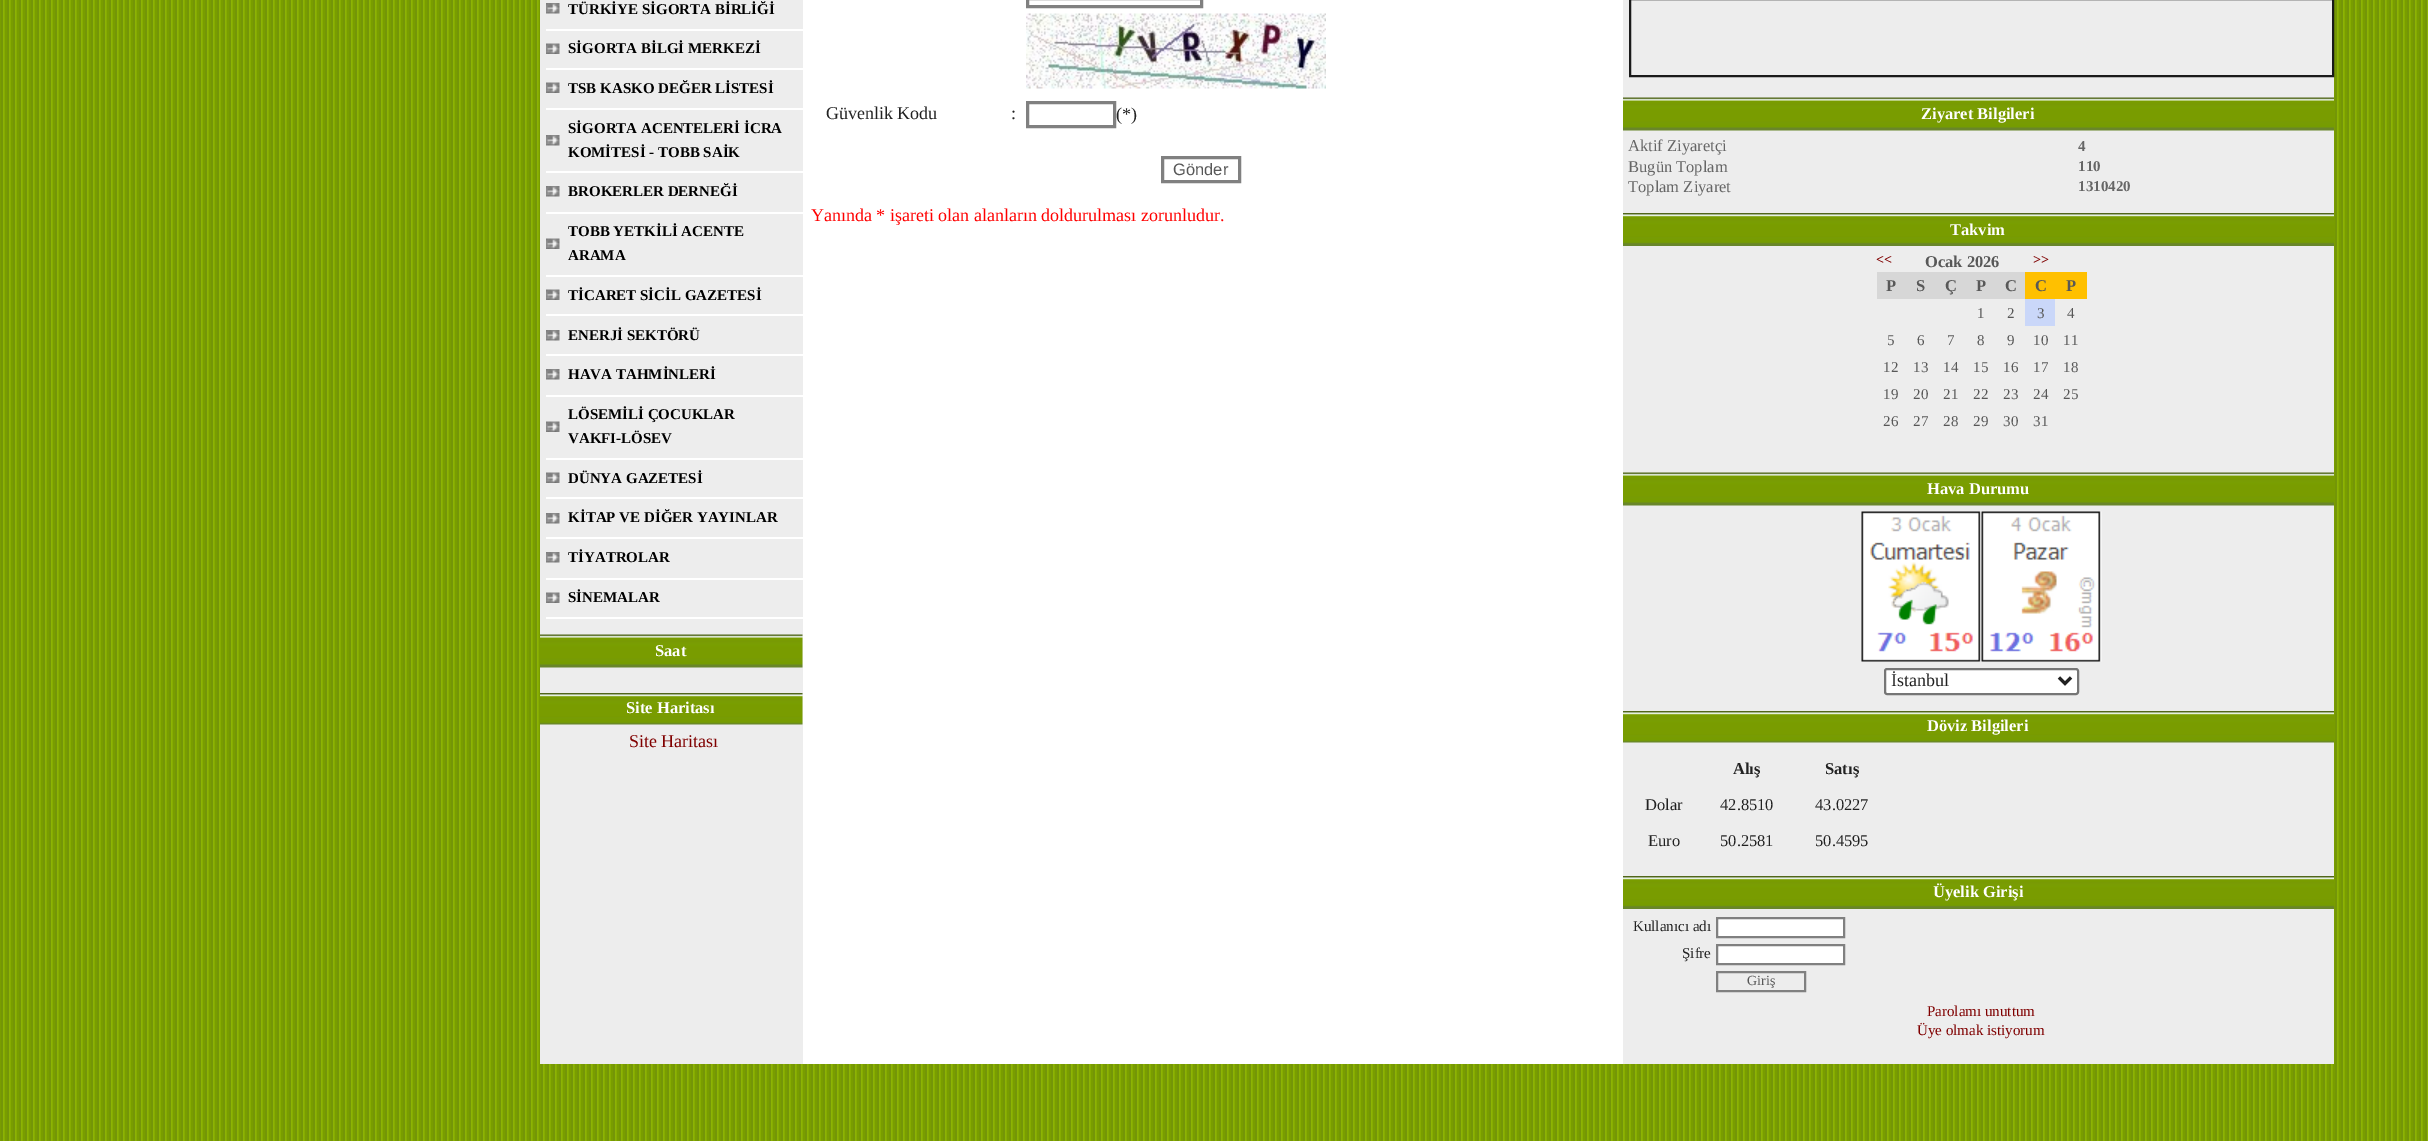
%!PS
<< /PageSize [2428 1141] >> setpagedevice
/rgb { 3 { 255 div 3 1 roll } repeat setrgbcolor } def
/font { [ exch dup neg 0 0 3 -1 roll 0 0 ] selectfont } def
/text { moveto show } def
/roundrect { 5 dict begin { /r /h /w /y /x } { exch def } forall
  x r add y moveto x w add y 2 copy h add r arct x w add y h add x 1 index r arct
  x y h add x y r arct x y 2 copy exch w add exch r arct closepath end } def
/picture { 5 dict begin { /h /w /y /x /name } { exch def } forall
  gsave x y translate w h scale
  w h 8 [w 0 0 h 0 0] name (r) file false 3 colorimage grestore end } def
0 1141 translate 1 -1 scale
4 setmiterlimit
255 255 255 rgb
0 0 2428 1141 rectfill
(img_01.rgb) 0 0 2428 1141 picture
803 0 820 1064 rectfill
237 237 237 rgb
540 0 263 1064 rectfill
(img_02.rgb) 546 3 14 11 picture
255 255 255 rgb
546 29 257 2 rectfill
(img_03.rgb) 546 43 14 11 picture
546 68 257 2 rectfill
(img_03.rgb) 546 82 14 11 picture
546 108 257 2 rectfill
(img_02.rgb) 546 135 14 11 picture
546 171 257 2 rectfill
(img_02.rgb) 546 186 14 11 picture
546 212 257 2 rectfill
(img_03.rgb) 546 238 14 11 picture
546 275 257 2 rectfill
(img_03.rgb) 546 289 14 11 picture
546 314 257 2 rectfill
(img_02.rgb) 546 330 14 11 picture
546 354 257 2 rectfill
(img_02.rgb) 546 369 14 11 picture
546 395 257 2 rectfill
(img_03.rgb) 546 421 14 11 picture
546 458 257 2 rectfill
(img_03.rgb) 546 472 14 11 picture
546 497 257 2 rectfill
(img_02.rgb) 546 513 14 11 picture
546 537 257 2 rectfill
(img_02.rgb) 546 552 14 11 picture
546 578 257 2 rectfill
(img_03.rgb) 546 592 14 11 picture
546 617 257 2 rectfill
(img_04.rgb) 540 634 263 34 picture
(img_05.rgb) 540 693 263 32 picture
128 128 128 rgb
3 setlinewidth
1027.5 -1.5 174 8 rectstroke
(img_06.rgb) 1026 13 300 76 picture
1027.5 102.5 87 24 rectstroke
1162.5 157.5 77 24 rectstroke
237 237 237 rgb
1623 0 711 1064 rectfill
26 26 26 rgb
2 setlinewidth
1630 -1 703 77 rectstroke
(img_07.rgb) 1623 97 711 34 picture
(img_08.rgb) 1623 213 711 33 picture
215 215 215 rgb
1877 272 148 27 rectfill
255 192 0 rgb
2025 272 62 27 rectfill
202 215 249 rgb
2025 299 30 27 rectfill
(img_07.rgb) 1623 472 711 34 picture
(img_09.rgb) 1861 511 241 151 picture
255 255 255 rgb
1885 669 193 25 2 roundrect gsave fill grestore
118 118 118 rgb
stroke
34 34 34 rgb
3 setlinewidth
2059 677.5 moveto 6 6 rlineto 6 -6 rlineto stroke
(img_10.rgb) 1623 711 711 32 picture
(img_08.rgb) 1623 876 711 33 picture
255 255 255 rgb
1717 918 moveto 127 0 rlineto 0 19 rlineto -127 0 rlineto closepath gsave fill grestore
128 128 128 rgb
2 setlinewidth
stroke
255 255 255 rgb
1717 945 moveto 127 0 rlineto 0 19 rlineto -127 0 rlineto closepath gsave fill grestore
128 128 128 rgb
stroke
1717 972 88 19 rectstroke
/LiberationSerif-Bold 15 font
0 0 0 rgb
(TÜRKİYE SİGORTA BİRLİĞİ) 568 14 text
(SİGORTA BİLGİ MERKEZİ) 568 53 text
(TSB KASKO DEĞER LİSTESİ) 568 93 text
(SİGORTA ACENTELERİ İCRA) 568 133 text
(KOMİTESİ - TOBB SAİK) 568 157 text
(BROKERLER DERNEĞİ) 568 196 text
(TOBB YETKİLİ ACENTE) 568 236 text
(ARAMA) 568 260 text
(TİCARET SİCİL GAZETESİ) 568 300 text
(ENERJİ SEKTÖRÜ) 568 340 text
(HAVA TAHMİNLERİ) 568 379 text
(LÖSEMİLİ ÇOCUKLAR) 568 419 text
(VAKFI-LÖSEV) 568 443 text
(DÜNYA GAZETESİ) 568 483 text
(KİTAP VE DİĞER YAYINLAR) 568 522 text
(TİYATROLAR) 568 562 text
(SİNEMALAR) 568 602 text
/LiberationSerif-Bold 16.5 font
255 255 255 rgb
(Saat) 655 656 text
(Site Haritası) 626 713 text
/LiberationSerif-Regular 18 font
128 0 0 rgb
(Site Haritası) 629 747 text
34 34 34 rgb
(Güvenlik Kodu) 826 119 text
(:) 1011 119 text
(\(*\)) 1116 120 text
/LiberationSans-Regular 16.5 font
88 88 88 rgb
(Gönder) 1173 175 text
/LiberationSerif-Regular 18 font
255 0 0 rgb
(Yanında * işareti olan alanların doldurulması zorunludur.) 811 221 text
/LiberationSerif-Bold 16.5 font
255 255 255 rgb
(Ziyaret Bilgileri) 1921 119 text
/LiberationSerif-Regular 16.5 font
102 102 102 rgb
(Aktif Ziyaretçi) 1628 151 text
/LiberationSerif-Bold 15 font
(4) 2078 151 text
/LiberationSerif-Regular 16.5 font
(Bugün Toplam) 1628 172 text
/LiberationSerif-Bold 15 font
(110) 2078 171 text
/LiberationSerif-Regular 16.5 font
(Toplam Ziyaret) 1628 192 text
/LiberationSerif-Bold 15 font
(1310420) 2078 191 text
/LiberationSerif-Bold 16.5 font
255 255 255 rgb
(Takvim) 1950 235 text
/LiberationSerif-Bold 14 font
128 0 0 rgb
(<<) 1876 264 text
/LiberationSerif-Bold 16.5 font
88 88 88 rgb
(Ocak 2026) 1925 267 text
/LiberationSerif-Bold 14 font
128 0 0 rgb
(>>) 2033 264 text
/LiberationSerif-Bold 16.5 font
88 88 88 rgb
(P) 1886 291 text
(S) 1916 291 text
(Ç) 1945 291 text
(P) 1976 291 text
(C) 2005 291 text
(C) 2035 291 text
(P) 2066 291 text
/LiberationSerif-Regular 15 font
(1) 1977 318 text
(2) 2007 318 text
(3) 2037 318 text
(4) 2067 318 text
(5) 1887 345 text
(6) 1917 345 text
(7) 1947 345 text
(8) 1977 345 text
(9) 2007 345 text
(10) 2033 345 text
(11) 2063 345 text
(12) 1883 372 text
(13) 1913 372 text
(14) 1943 372 text
(15) 1973 372 text
(16) 2003 372 text
(17) 2033 372 text
(18) 2063 372 text
(19) 1883 399 text
(20) 1913 399 text
(21) 1943 399 text
(22) 1973 399 text
(23) 2003 399 text
(24) 2033 399 text
(25) 2063 399 text
(26) 1883 426 text
(27) 1913 426 text
(28) 1943 426 text
(29) 1973 426 text
(30) 2003 426 text
(31) 2033 426 text
/LiberationSerif-Bold 16.5 font
255 255 255 rgb
(Hava Durumu) 1927 494 text
/LiberationSerif-Regular 18 font
34 34 34 rgb
(İstanbul) 1891 686 text
/LiberationSerif-Bold 16.5 font
255 255 255 rgb
(Döviz Bilgileri) 1927 731 text
34 34 34 rgb
(Alış) 1733 774 text
(Satış) 1825 774 text
/LiberationSerif-Regular 16.5 font
(Dolar) 1645 810 text
(42.8510) 1720 810 text
(43.0227) 1815 810 text
(Euro) 1648 846 text
(50.2581) 1720 846 text
(50.4595) 1815 846 text
/LiberationSerif-Bold 16.5 font
255 255 255 rgb
(Üyelik Girişi) 1933 897 text
/LiberationSerif-Regular 15 font
34 34 34 rgb
(Kullanıcı adı) 1633 931 text
(Şifre) 1682 958 text
/LiberationSerif-Regular 14 font
88 88 88 rgb
(Giriş) 1747 985 text
/LiberationSerif-Regular 15 font
128 0 0 rgb
(Parolamı unuttum) 1927 1016 text
(Üye olmak istiyorum) 1917 1035 text
showpage
